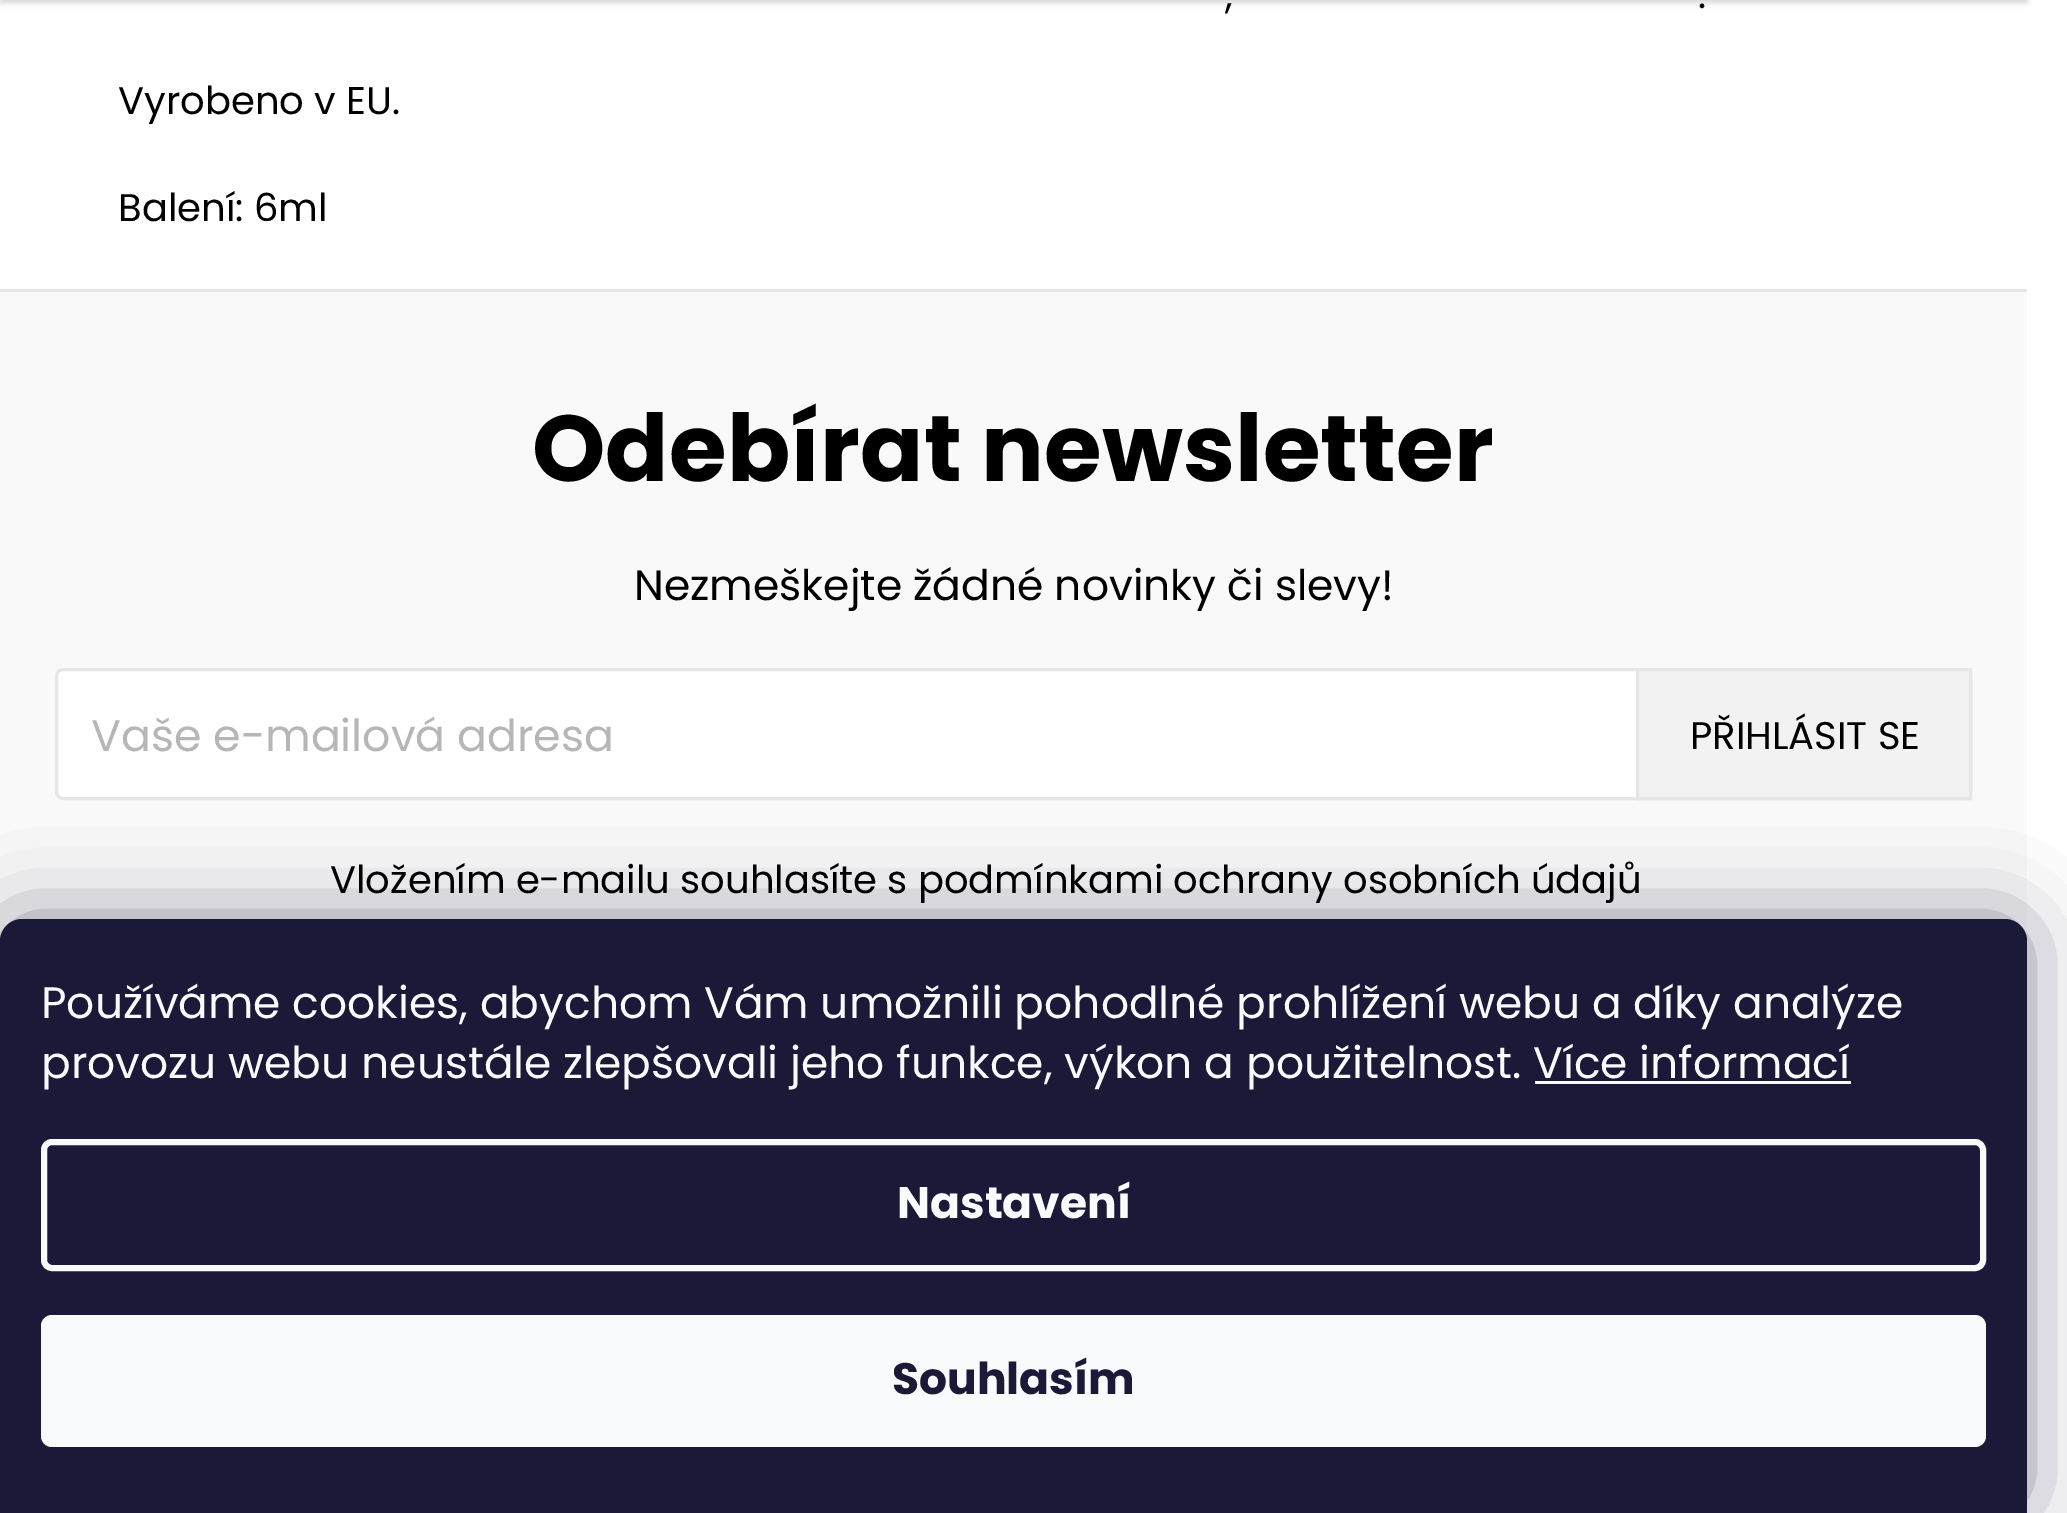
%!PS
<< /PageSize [2067 1513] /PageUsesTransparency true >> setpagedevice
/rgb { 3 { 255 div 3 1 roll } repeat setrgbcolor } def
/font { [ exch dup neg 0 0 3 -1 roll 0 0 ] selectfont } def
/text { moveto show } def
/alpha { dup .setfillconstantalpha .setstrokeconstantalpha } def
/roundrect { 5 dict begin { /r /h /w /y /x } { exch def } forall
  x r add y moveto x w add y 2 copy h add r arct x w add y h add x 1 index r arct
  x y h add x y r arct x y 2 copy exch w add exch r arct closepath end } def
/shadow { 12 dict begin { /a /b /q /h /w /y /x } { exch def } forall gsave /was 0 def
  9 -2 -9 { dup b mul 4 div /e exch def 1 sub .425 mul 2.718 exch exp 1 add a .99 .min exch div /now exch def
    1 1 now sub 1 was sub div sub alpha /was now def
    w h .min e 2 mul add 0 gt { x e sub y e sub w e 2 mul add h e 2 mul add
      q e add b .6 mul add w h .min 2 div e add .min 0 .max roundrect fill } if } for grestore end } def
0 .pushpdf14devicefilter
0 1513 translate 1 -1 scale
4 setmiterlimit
255 255 255 rgb
0 0 2067 1513 rectfill
0 0 0 rgb
0 -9 2027 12 0 3 0.16 shadow
249 249 249 rgb
0 292 2027 649 rectfill
230 230 230 rgb
0 289 2027 3 rectfill
255 255 255 rgb
56.5 669.5 1914 129 6.5 roundrect gsave fill grestore
230 230 230 rgb
3 setlinewidth
stroke
242 242 242 rgb
1637.5 669.5 moveto 333 0 rlineto 0 129 rlineto -333 0 rlineto closepath gsave fill grestore
230 230 230 rgb
stroke
27 25 57 rgb
0 919 2027 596 22 41 0.5 shadow
26 25 55 rgb
22 919 moveto 1983 0 rlineto 12 0 22 10 22 22 rcurveto 0 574 rlineto -2027 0 rlineto 0 -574 rlineto 0 -12 10 -22 22 -22 rcurveto closepath fill
248 250 251 rgb
1535 1081 316 3 rectfill
6 setlinewidth
44 1142 1939 126 8 roundrect stroke
41 1315 1945 132 11 roundrect fill
/Poppins-Regular 38.5 font
0 0 0 rgb
(,) 1225 8 text
(.) 1698 8 text
(Vyrobeno v EU.) 118 114 text
(Balení: 6ml) 118 221 text
/Poppins-Bold 93.5 font
(Odebírat newsletter) 532 481 text
/Poppins-Regular 42.4 font
(Nezmeškejte žádné novinky či slevy!) 634 600 text
/Poppins-Regular 44.25 font
182 182 182 rgb
(Vaše e-mailová adresa) 91 751 text
/Poppins-Regular 38.5 font
0 0 0 rgb
(PŘIHLÁSIT SE) 1690 749 text
(Vložením e-mailu souhlasíte s podmínkami ochrany osobních údajů) 330 893 text
/Poppins-Regular 44 font
248 250 251 rgb
(Používáme cookies, abychom Vám umožnili pohodlné prohlížení webu a díky analýze) 41 1018 text
(provozu webu neustále zlepšovali jeho funkce, výkon a použitelnost. Více informací) 41 1078 text
/Poppins-Bold 44 font
(Nastavení) 897 1218 text
26 25 55 rgb
(Souhlasím) 892 1394 text
.poppdf14devicefilter showpage
